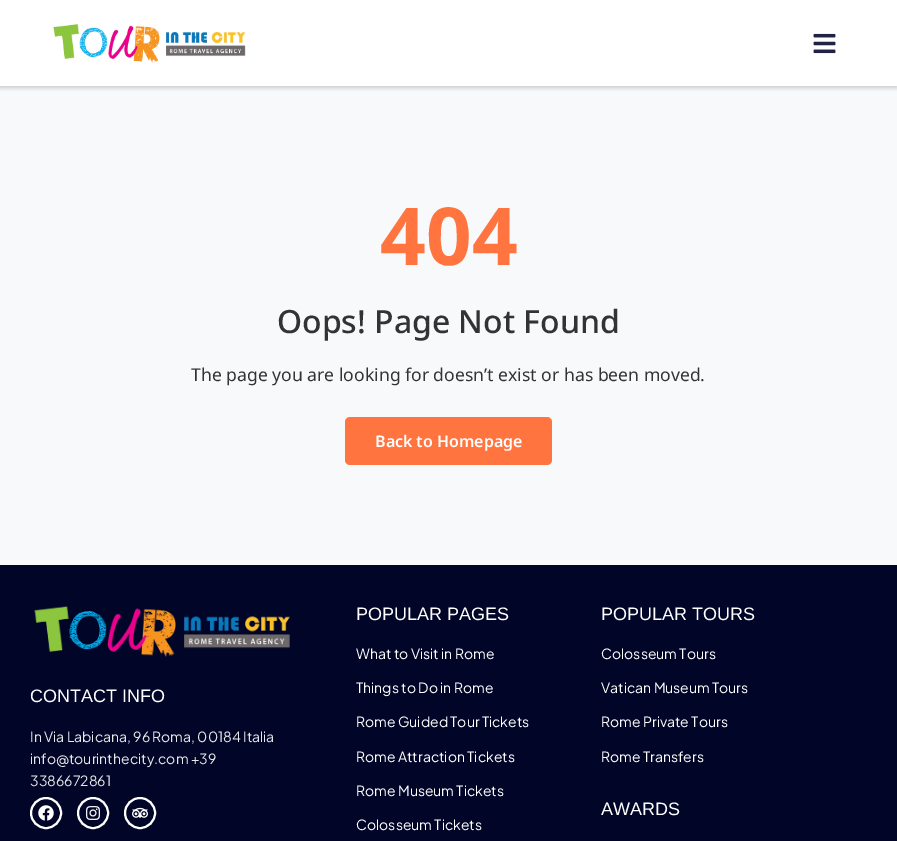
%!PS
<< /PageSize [897 841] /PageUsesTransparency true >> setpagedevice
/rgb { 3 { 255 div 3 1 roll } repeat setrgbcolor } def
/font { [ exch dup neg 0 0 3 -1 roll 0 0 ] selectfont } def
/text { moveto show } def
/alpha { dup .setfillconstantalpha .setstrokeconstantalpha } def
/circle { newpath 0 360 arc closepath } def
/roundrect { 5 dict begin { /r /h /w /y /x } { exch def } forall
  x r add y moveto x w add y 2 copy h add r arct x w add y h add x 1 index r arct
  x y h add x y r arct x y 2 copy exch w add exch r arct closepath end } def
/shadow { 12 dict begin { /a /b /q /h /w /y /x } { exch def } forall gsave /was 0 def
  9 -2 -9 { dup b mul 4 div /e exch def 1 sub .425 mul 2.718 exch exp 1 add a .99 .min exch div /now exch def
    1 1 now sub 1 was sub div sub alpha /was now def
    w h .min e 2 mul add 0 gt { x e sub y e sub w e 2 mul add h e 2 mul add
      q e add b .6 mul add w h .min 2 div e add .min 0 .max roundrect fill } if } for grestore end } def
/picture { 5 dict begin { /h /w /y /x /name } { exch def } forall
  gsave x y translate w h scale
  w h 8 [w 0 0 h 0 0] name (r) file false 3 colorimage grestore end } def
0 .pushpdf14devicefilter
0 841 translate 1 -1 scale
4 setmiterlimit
255 255 255 rgb
0 0 897 841 rectfill
248 249 250 rgb
0 86 897 479 rectfill
gsave
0 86 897 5 rectclip
32 33 36 rgb
0 1 897 86 0 3 0.28 shadow
grestore
(img_01.rgb) 53 23 193 40 picture
(img_02.rgb) 813 33 23 21 picture
255 116 63 rgb
345 417 207 48 5 roundrect fill
1 5 40 rgb
0 565 897 276 rectfill
(img_03.rgb) 34 606 256 51 picture
255 255 255 rgb
2 setlinewidth
46 813 15 circle stroke
(img_04.rgb) 38 805 16 16 picture
93 813 15 circle stroke
(img_05.rgb) 86 806 14 14 picture
140 813 15 circle stroke
(img_06.rgb) 132 807 16 11 picture
/NotoSans-Bold 80 font
255 116 63 rgb
(404) 380 265 text
/NotoSans-Medium 32 font
51 51 51 rgb
(Oops! Page Not Found) 277 333 text
/NotoSans-Regular 17.6 font
(The page you are looking for doesn’t exist or has been moved.) 191 381 text
/NotoSans-SemiBold 16 font
255 255 255 rgb
(Back to Homepage) 375 447 text
/LiberationSans-Regular 18 font
(CONTACT INFO) 30 702 text
/PlusJakartaSans-Regular 14 font
233 233 233 rgb
(In Via Labicana, 96 Roma, 00184 Italia) 30 742 text
(info@tourinthecity.com +39) 30 764 text
(3386672861) 30 786 text
/LiberationSans-Regular 18 font
255 255 255 rgb
(POPULAR PAGES) 356 620 text
/PlusJakartaSans-Regular 14 font
(What to Visit in Rome) 356 659 text
(Things to Do in Rome) 356 693 text
(Rome Guided Tour Tickets) 356 727 text
(Rome Attraction Tickets) 356 762 text
(Rome Museum Tickets) 356 796 text
(Colosseum Tickets) 356 830 text
/LiberationSans-Regular 18 font
(POPULAR TOURS) 601 620 text
/PlusJakartaSans-Regular 14 font
(Colosseum Tours) 601 659 text
(Vatican Museum Tours) 601 693 text
(Rome Private Tours) 601 727 text
(Rome Transfers) 601 762 text
/LiberationSans-Regular 18 font
(AWARDS) 601 815 text
.poppdf14devicefilter showpage
